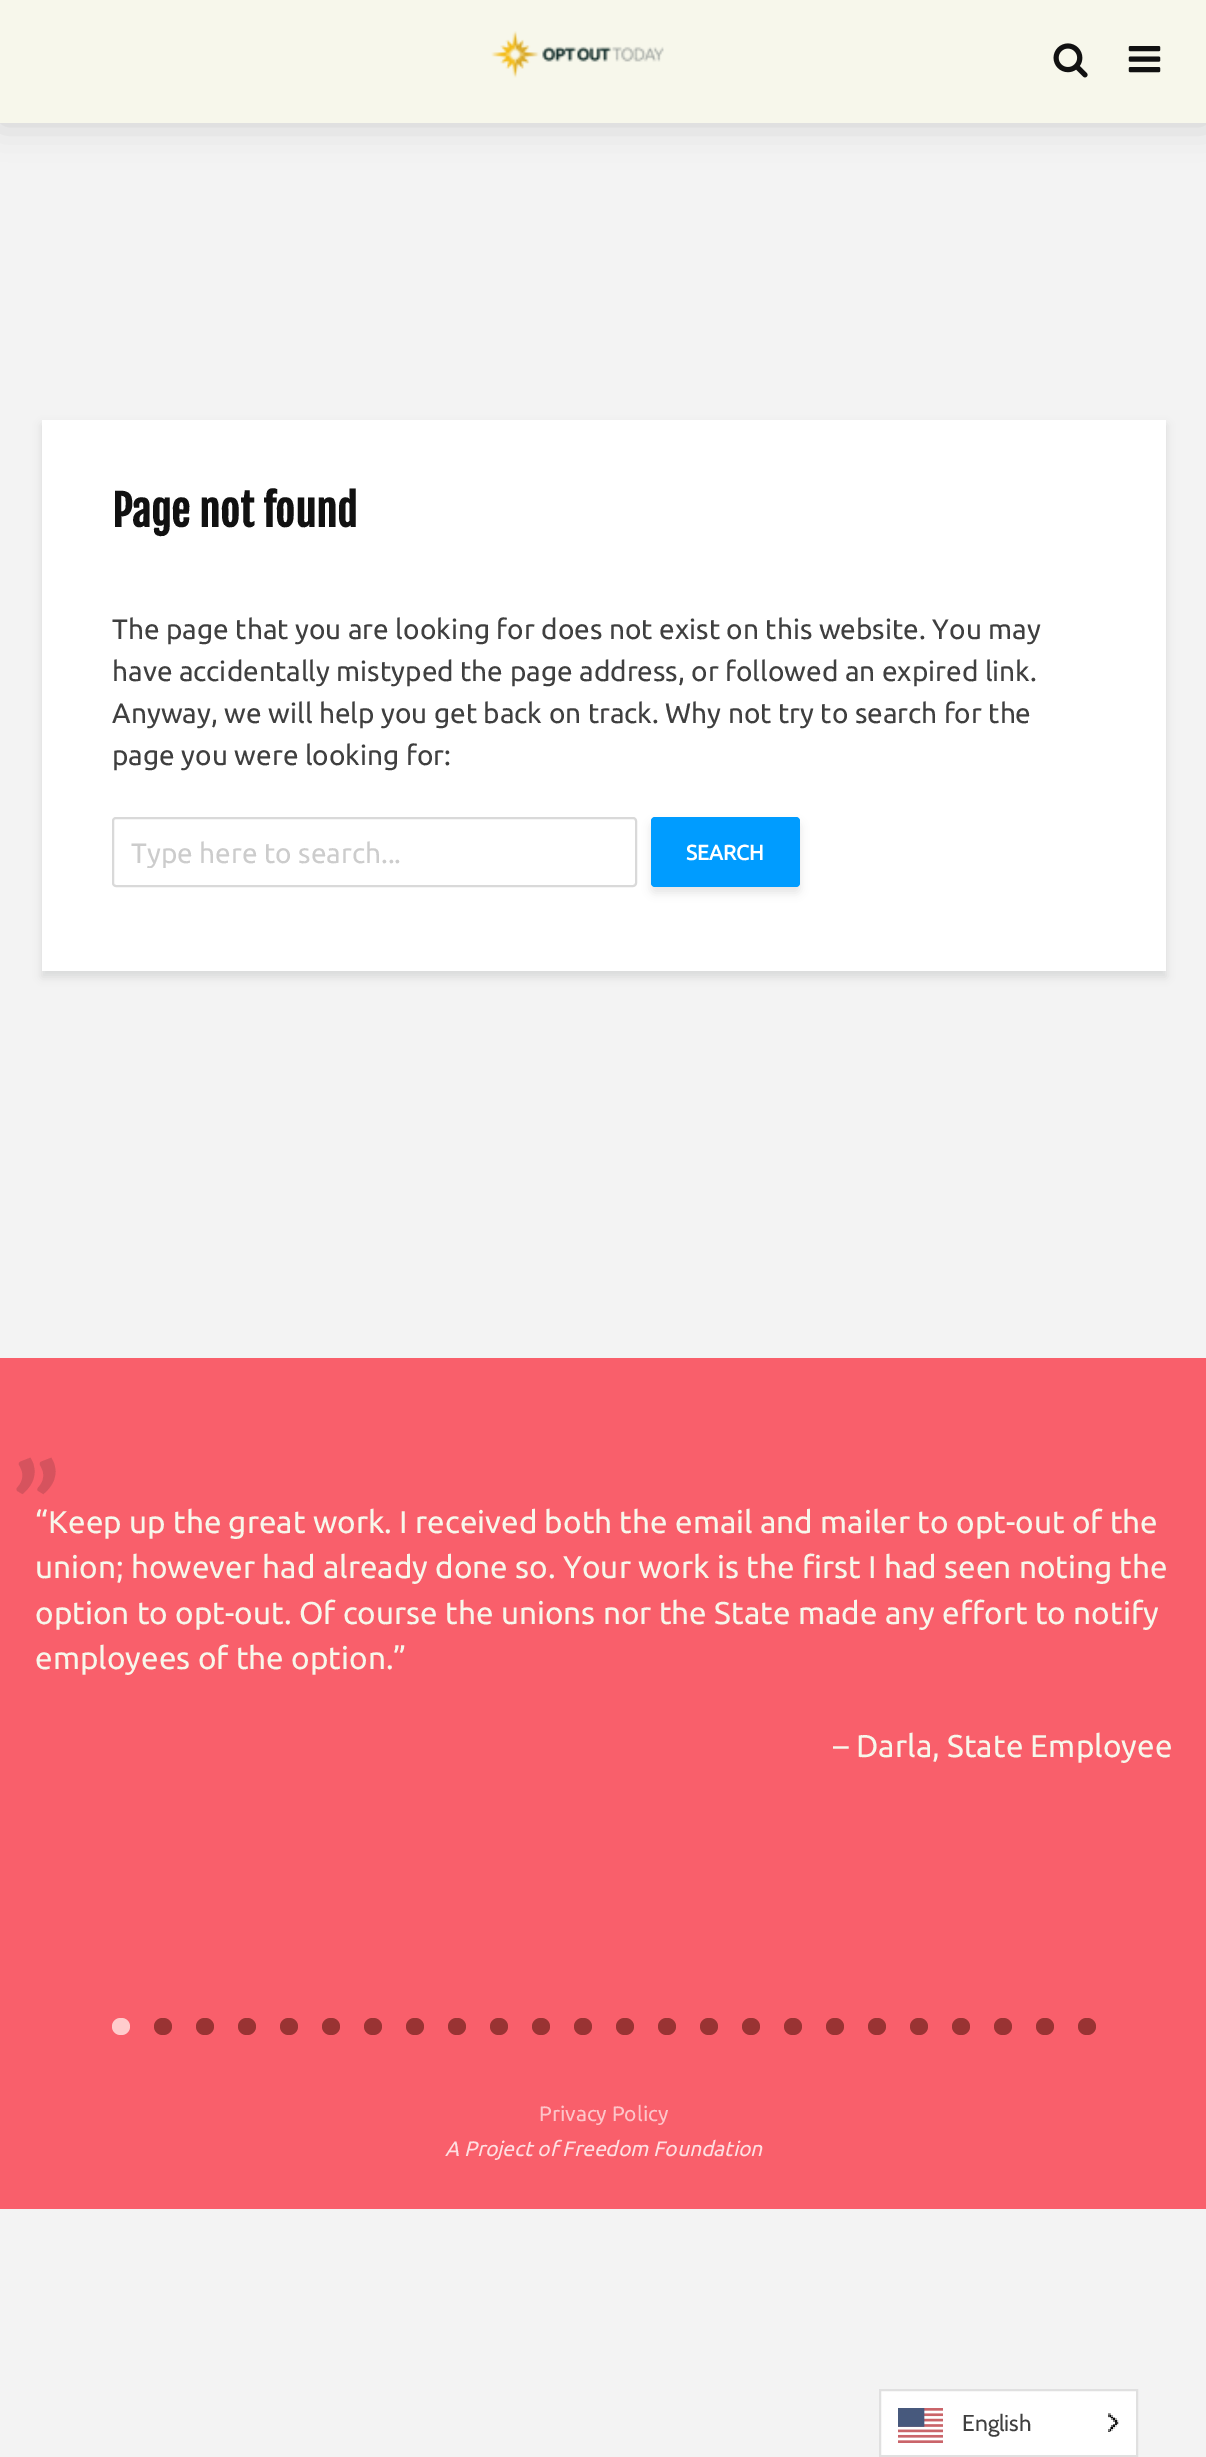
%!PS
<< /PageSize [1206 2457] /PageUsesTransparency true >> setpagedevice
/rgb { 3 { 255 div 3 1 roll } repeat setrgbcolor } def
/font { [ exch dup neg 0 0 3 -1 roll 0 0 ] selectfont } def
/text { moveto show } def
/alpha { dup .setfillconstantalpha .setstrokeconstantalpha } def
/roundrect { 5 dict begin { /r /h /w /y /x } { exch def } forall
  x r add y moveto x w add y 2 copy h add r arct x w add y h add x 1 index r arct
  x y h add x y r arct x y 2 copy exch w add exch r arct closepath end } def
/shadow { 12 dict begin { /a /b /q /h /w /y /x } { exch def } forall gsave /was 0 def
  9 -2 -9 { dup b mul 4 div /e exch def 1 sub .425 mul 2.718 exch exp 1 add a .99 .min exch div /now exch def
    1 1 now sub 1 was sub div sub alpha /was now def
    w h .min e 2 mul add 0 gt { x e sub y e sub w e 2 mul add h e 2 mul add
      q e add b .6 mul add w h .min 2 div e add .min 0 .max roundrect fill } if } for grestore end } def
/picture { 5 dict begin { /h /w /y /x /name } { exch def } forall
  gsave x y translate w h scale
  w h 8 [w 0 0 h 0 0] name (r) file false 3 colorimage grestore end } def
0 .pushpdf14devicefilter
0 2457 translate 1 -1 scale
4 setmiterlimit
243 243 243 rgb
0 0 1206 2457 rectfill
0 0 0 rgb
0 0 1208 123 0 17.5 0.15 shadow
247 247 235 rgb
0 0 1206 123 rectfill
(img_01.rgb) 491 31 173 47 picture
(img_02.rgb) 1053 43 35 35 picture
(img_03.rgb) 1128 46 33 27 picture
0 1 1 rgb
42 425 1124 552 0 4.5 0.1 shadow
255 255 255 rgb
42 420 1124 551 rectfill
217 217 217 rgb
2 setlinewidth
113 818 523 68 3 roundrect stroke
0 0 0 rgb
651 823 149 70 4 4.5 0.1 shadow
0 156 255 rgb
651 817 149 70 4 roundrect fill
249 95 107 rgb
0 1358 1206 851 rectfill
255 204 204 rgb
112 2018 18 17 8.5 roundrect fill
153 51 51 rgb
154 2018 18 17 8.5 roundrect fill
196 2018 18 17 8.5 roundrect fill
238 2018 18 17 8.5 roundrect fill
280 2018 18 17 8.5 roundrect fill
322 2018 18 17 8.5 roundrect fill
364 2018 18 17 8.5 roundrect fill
406 2018 18 17 8.5 roundrect fill
448 2018 18 17 8.5 roundrect fill
490 2018 18 17 8.5 roundrect fill
532 2018 18 17 8.5 roundrect fill
574 2018 18 17 8.5 roundrect fill
616 2018 18 17 8.5 roundrect fill
658 2018 18 17 8.5 roundrect fill
700 2018 18 17 8.5 roundrect fill
742 2018 18 17 8.5 roundrect fill
784 2018 18 17 8.5 roundrect fill
826 2018 18 17 8.5 roundrect fill
868 2018 18 17 8.5 roundrect fill
910 2018 18 17 8.5 roundrect fill
952 2018 18 17 8.5 roundrect fill
994 2018 18 17 8.5 roundrect fill
1036 2018 18 17 8.5 roundrect fill
1078 2018 18 17 8.5 roundrect fill
255 255 255 rgb
880 2390 moveto 257 0 rlineto 0 66 rlineto -257 0 rlineto closepath gsave fill grestore
224 224 224 rgb
stroke
(img_04.rgb) 898 2408 45 35 picture
(img_05.rgb) 1108 2413 11 19 picture
/FjallaOne-Bold 42 font
17 17 17 rgb
(Page not found) 112 527 text
/Ubuntu-Regular 28 font
63 63 63 rgb
(The page that you are looking for does not exist on this website. You may) 112 639 text
(have accidentally mistyped the page address, or followed an expired link.) 112 681 text
(Anyway, we will help you get back on track. Why not try to search for the) 112 723 text
(page you were looking for:) 112 765 text
gsave
131 837 487 31 rectclip
204 204 204 rgb
(Type here to search...) 131 863 text
grestore
/Ubuntu-Bold 21 font
255 255 255 rgb
(SEARCH) 686 860 text
/Lato-Bold 126 font
214 83 94 rgb
(”) 11 1554 text
/Ubuntu-Regular 31.5 font
247 247 235 rgb
(“Keep up the great work. I received both the email and mailer to opt-out of the) 35 1533 text
(union; however had already done so. Your work is the first I had seen noting the) 35 1578 text
(option to opt-out. Of course the unions nor the State made any effort to notify) 35 1624 text
(employees of the option.”) 35 1669 text
(– Darla, State Employee) 833 1757 text
/Ubuntu-Regular 21 font
253 197 201 rgb
(Privacy Policy) 539 2121 text
/Ubuntu-Italic 21 font
254 223 225 rgb
(A Project of Freedom Foundation) 445 2156 text
/Cabin-Regular 23 font
63 63 63 rgb
(English) 962 2431 text
.poppdf14devicefilter showpage
